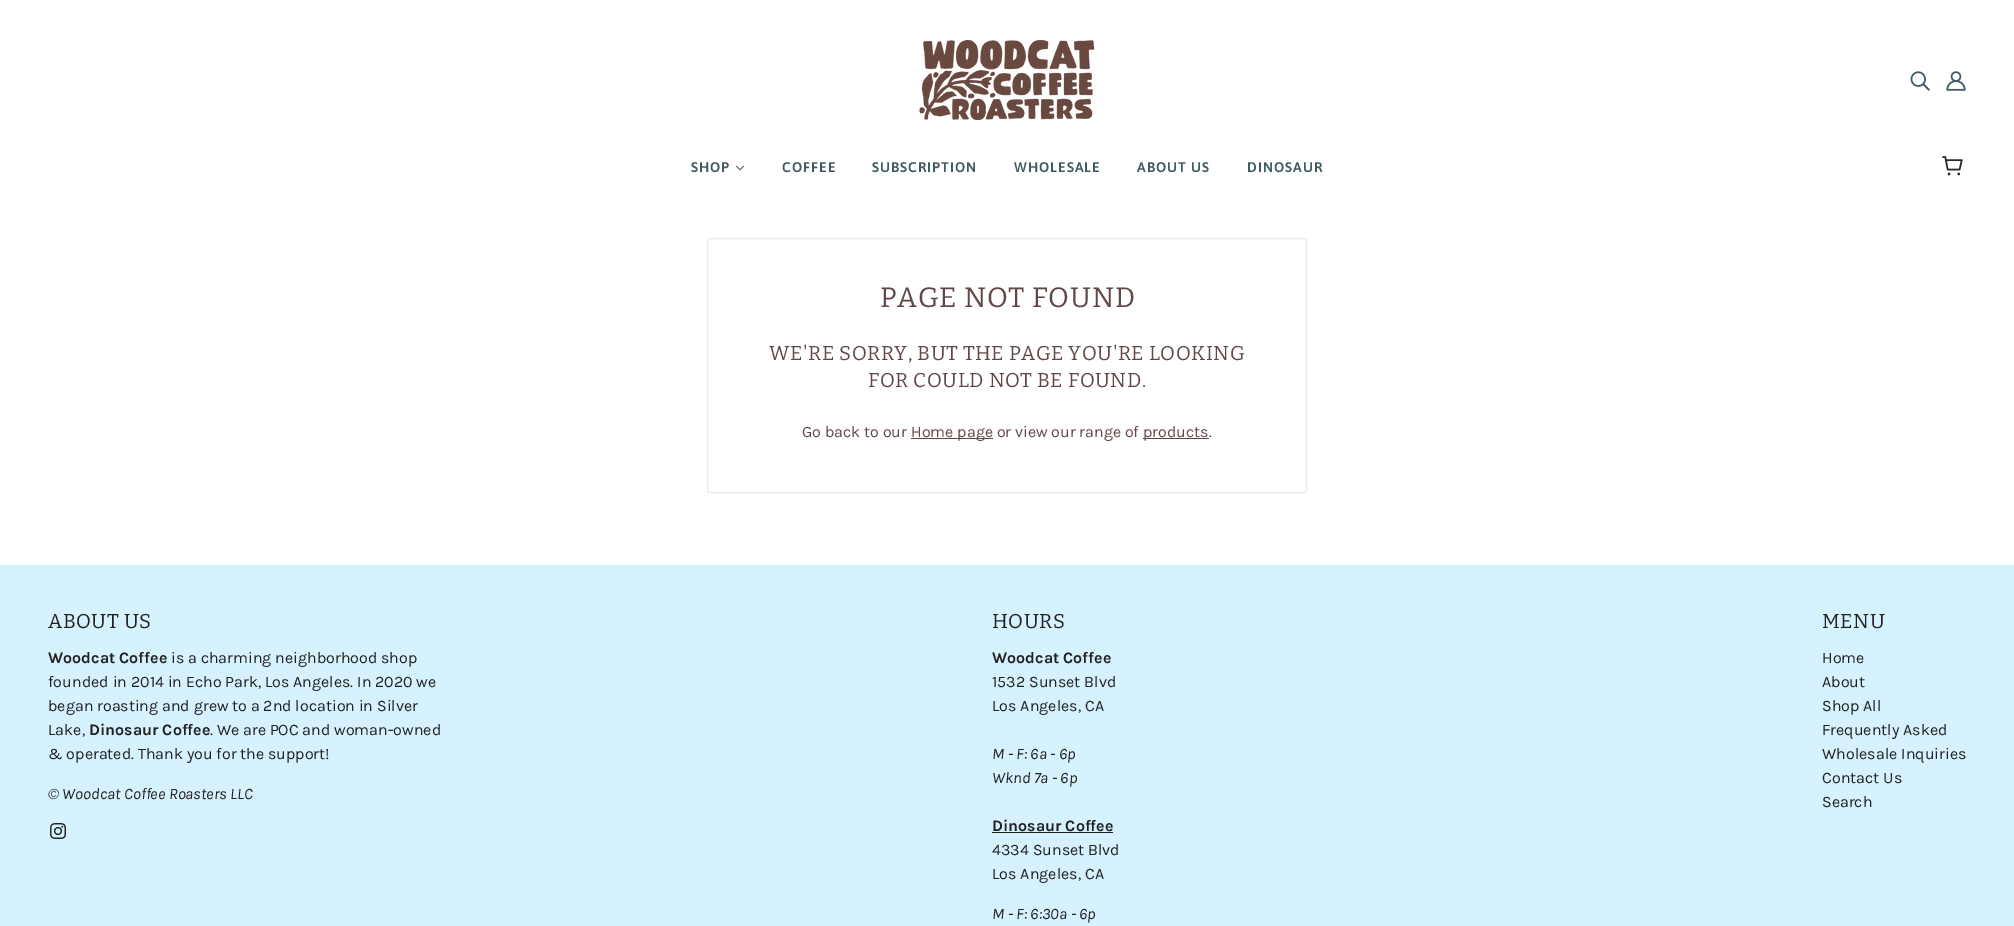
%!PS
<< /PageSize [2014 926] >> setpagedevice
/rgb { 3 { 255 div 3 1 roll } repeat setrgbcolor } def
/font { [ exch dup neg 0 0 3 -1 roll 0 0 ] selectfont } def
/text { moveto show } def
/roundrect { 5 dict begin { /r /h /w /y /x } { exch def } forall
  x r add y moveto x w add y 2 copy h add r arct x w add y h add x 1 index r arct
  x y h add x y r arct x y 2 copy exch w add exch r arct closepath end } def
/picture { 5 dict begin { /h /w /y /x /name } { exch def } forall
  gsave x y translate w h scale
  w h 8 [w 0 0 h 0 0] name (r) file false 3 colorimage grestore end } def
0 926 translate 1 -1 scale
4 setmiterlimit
255 255 255 rgb
0 0 2014 926 rectfill
(img_01.rgb) 919 40 176 80 picture
(img_02.rgb) 1910 71 20 20 picture
(img_03.rgb) 1946 71 20 20 picture
(img_04.rgb) 735 165 10 6 picture
(img_05.rgb) 1942 156 21 20 picture
234 234 234 rgb
707.5 238.5 599 254 2.5 roundrect stroke
97 71 71 rgb
911 438 82 1 rectfill
1143 438 66 1 rectfill
215 242 255 rgb
0 565 2014 361 rectfill
(img_06.rgb) 50 823 16 16 picture
33 33 33 rgb
992 832 121 1 rectfill
/Asap-SemiBold 14 font
62 90 98 rgb
691 172 moveto 1 0 (SHOP) ashow
782 172 moveto 1 0 (COFFEE) ashow
872 172 moveto 1 0 (SUBSCRIPTION) ashow
1014 172 moveto 1 0 (WHOLESALE) ashow
1137 172 moveto 1 0 (ABOUT US) ashow
1247 172 moveto 1 0 (DINOSAUR) ashow
/Bitter-Regular 28 font
97 71 71 rgb
880 307 moveto 0.75 0 (PAGE NOT FOUND) ashow
/Bitter-Regular 20 font
769 360 moveto 0.5 0 (WE'RE SORRY, BUT THE PAGE YOU'RE LOOKING) ashow
868 387 moveto 0.5 0 (FOR COULD NOT BE FOUND.) ashow
/Karla-Regular 16 font
(Go back to our) 802 437 text
(Home page or view our range of) 911 437 text
(products.) 1143 437 text
/Bitter-Regular 20 font
33 33 33 rgb
48 628 moveto 0.5 0 (ABOUT US) ashow
/Karla-Bold 16 font
(Woodcat Coffee) 48 663 text
/Karla-Regular 16 font
(is a charming neighborhood shop) 171 663 text
(founded in 2014 in Echo Park, Los Angeles. In 2020 we) 48 687 text
(began roasting and grew to a 2nd location in Silver) 48 711 text
(Lake,) 48 735 text
/Karla-Bold 16 font
(Dinosaur Coffee) 89 735 text
/Karla-Regular 16 font
(. We are POC and woman-owned) 210 735 text
(& operated. Thank you for the support!) 48 759 text
/Karla-Italic 16 font
(© Woodcat Coffee Roasters LLC) 48 799 text
/Bitter-Regular 20 font
992 628 moveto 0.5 0 (HOURS) ashow
/Karla-Bold 16 font
(Woodcat Coffee) 992 663 text
/Karla-Regular 16 font
(1532 Sunset Blvd) 992 687 text
(Los Angeles, CA) 992 711 text
/Karla-Italic 16 font
(M - F: 6a - 6p) 992 759 text
(Wknd 7a - 6p) 992 783 text
/Karla-Bold 16 font
(Dinosaur Coffee) 992 831 text
/Karla-Regular 16 font
(4334 Sunset Blvd) 992 855 text
(Los Angeles, CA) 992 879 text
/Karla-Italic 16 font
(M - F: 6:30a - 6p) 992 919 text
/Bitter-Regular 20 font
1822 628 moveto 0.5 0 (MENU) ashow
/Karla-Regular 16 font
(Home) 1822 663 text
(About) 1822 687 text
(Shop All) 1822 711 text
(Frequently Asked) 1822 735 text
(Wholesale Inquiries) 1822 759 text
(Contact Us) 1822 783 text
(Search) 1822 807 text
showpage
